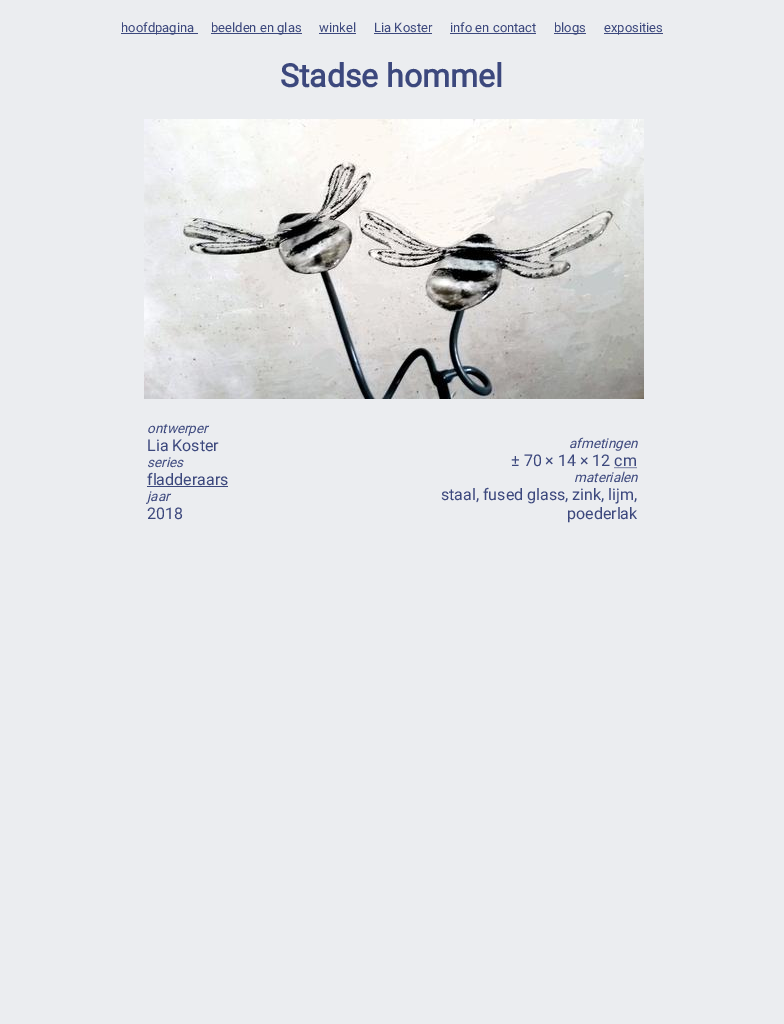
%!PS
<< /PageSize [784 1024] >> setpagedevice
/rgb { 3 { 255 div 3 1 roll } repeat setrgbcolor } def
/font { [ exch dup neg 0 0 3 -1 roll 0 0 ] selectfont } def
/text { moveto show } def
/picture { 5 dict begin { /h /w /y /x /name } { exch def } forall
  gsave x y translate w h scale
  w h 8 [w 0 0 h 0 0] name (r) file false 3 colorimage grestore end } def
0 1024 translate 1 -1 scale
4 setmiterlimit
235 237 240 rgb
0 0 784 1024 rectfill
60 72 125 rgb
121 33 77 1 rectfill
211 33 91 1 rectfill
319 33 37 1 rectfill
374 33 58 1 rectfill
450 33 86 1 rectfill
554 33 32 1 rectfill
604 33 59 1 rectfill
(img_01.rgb) 144 119 500 280 picture
147 486 81 1 rectfill
[1 1] 0 setdash
614.5 467.5 moveto 22.5 0 rlineto stroke
/Roboto-Regular 13 font
(hoofdpagina) 121 32 text
(beelden en glas) 211 32 text
(winkel) 319 32 text
(Lia Koster) 374 32 text
(info en contact) 450 32 text
(blogs) 554 32 text
(exposities) 604 32 text
/Roboto-Bold 32 font
(Stadse hommel) 280 87 text
/Roboto-Italic 13.5 font
(ontwerper) 147 433 text
/Roboto-Regular 16 font
(Lia Koster) 147 451 text
/Roboto-Italic 13.5 font
(series) 147 467 text
/Roboto-Regular 16 font
(fladderaars) 147 485 text
/Roboto-Italic 13.5 font
(jaar) 147 501 text
/Roboto-Regular 16 font
(2018) 147 519 text
/Roboto-Italic 13.5 font
(afmetingen) 569 448 text
/Roboto-Regular 16 font
(± 70 × 14 × 12 cm) 511 466 text
/Roboto-Italic 13.5 font
(materialen) 574 482 text
/Roboto-Regular 16 font
(staal, fused glass, zink, lijm,) 441 500 text
(poederlak) 567 519 text
showpage
